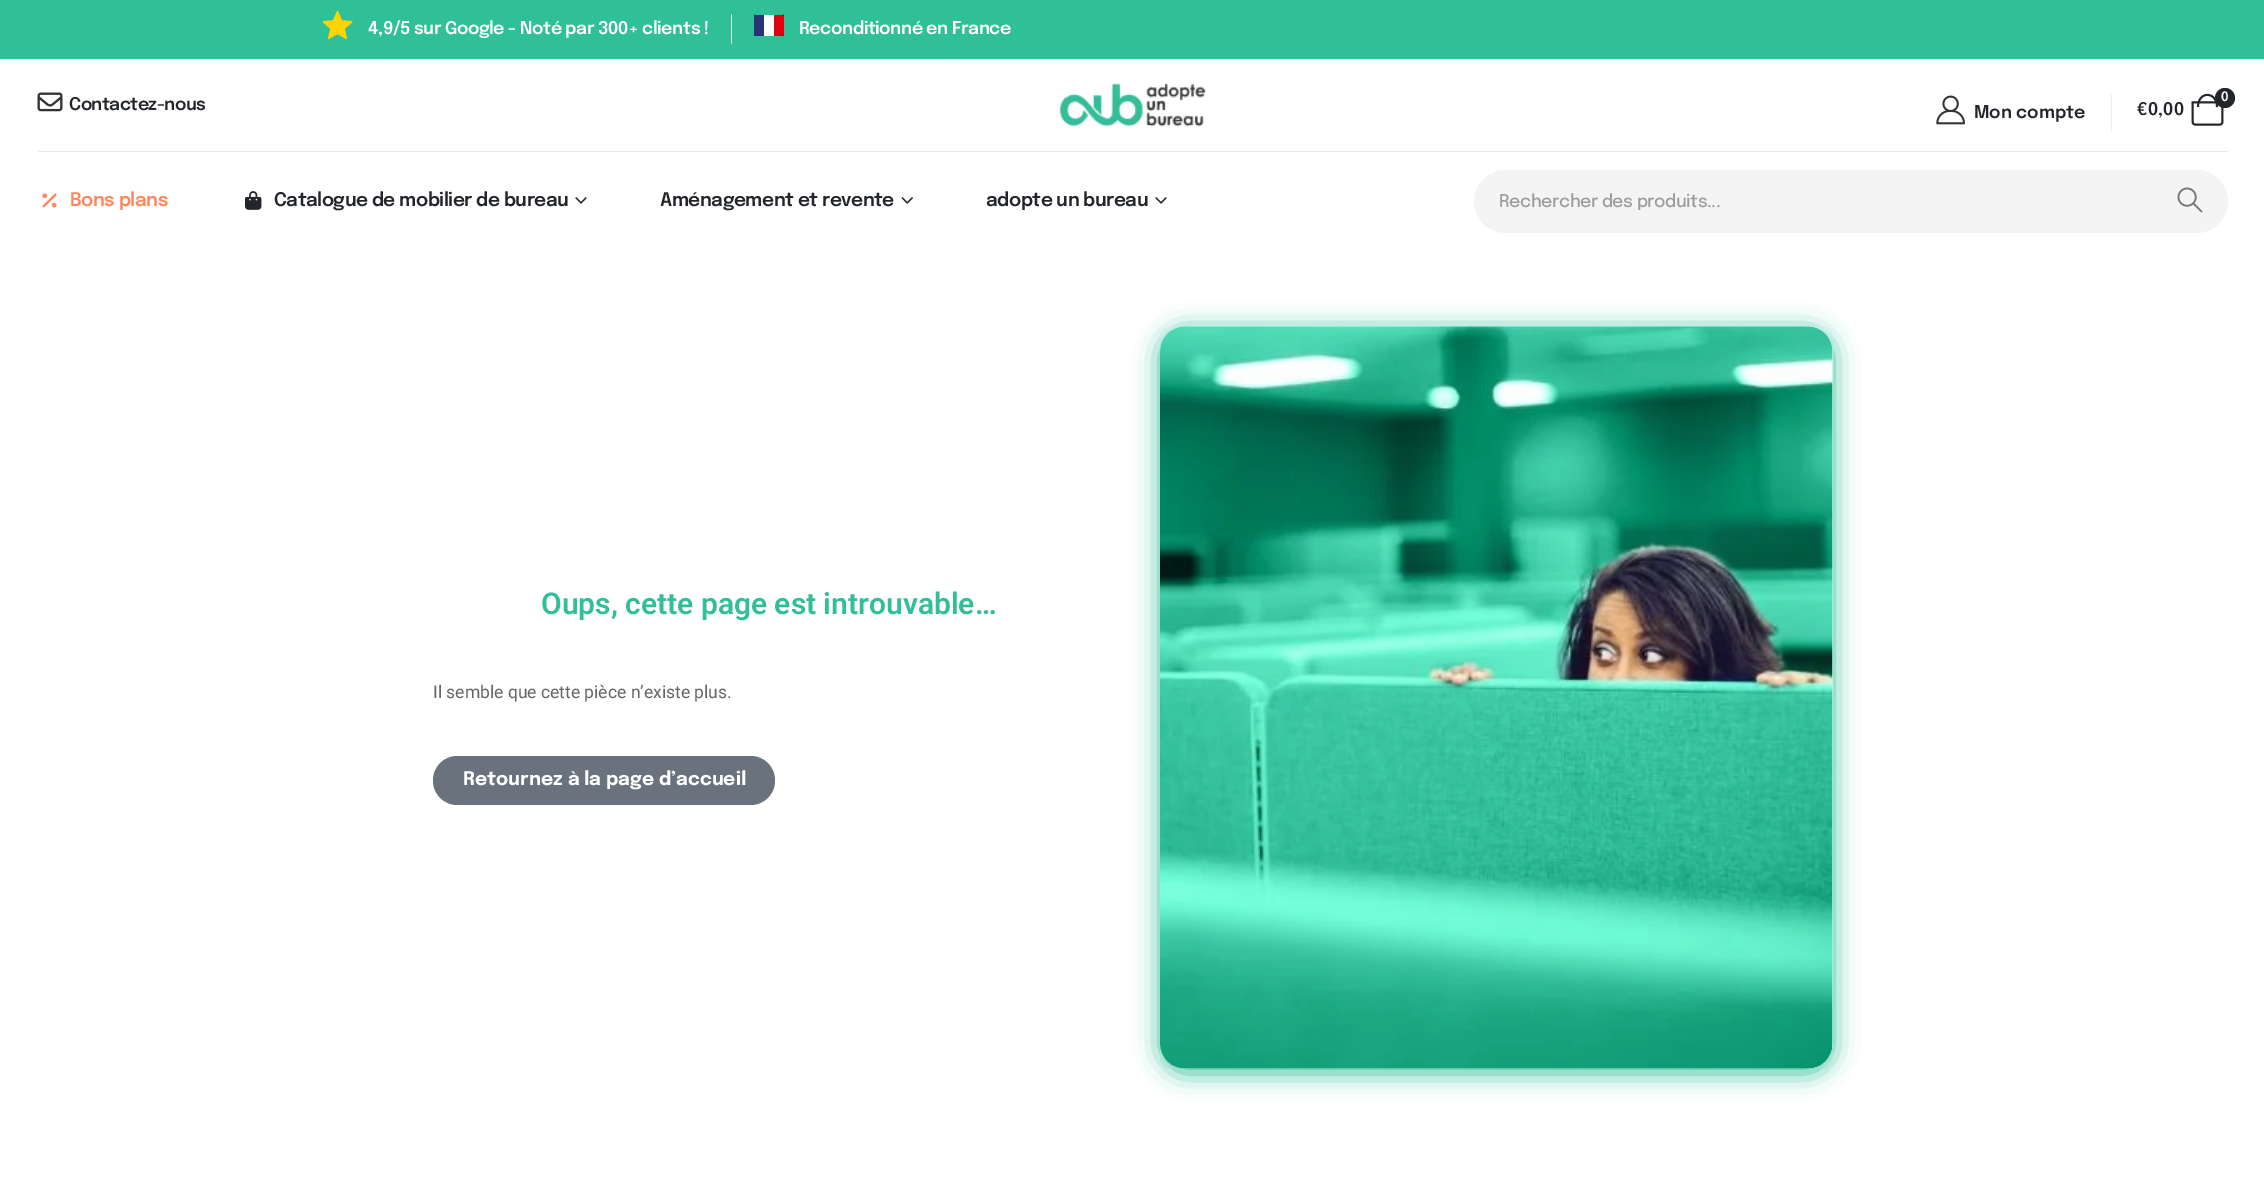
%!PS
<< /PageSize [2264 1186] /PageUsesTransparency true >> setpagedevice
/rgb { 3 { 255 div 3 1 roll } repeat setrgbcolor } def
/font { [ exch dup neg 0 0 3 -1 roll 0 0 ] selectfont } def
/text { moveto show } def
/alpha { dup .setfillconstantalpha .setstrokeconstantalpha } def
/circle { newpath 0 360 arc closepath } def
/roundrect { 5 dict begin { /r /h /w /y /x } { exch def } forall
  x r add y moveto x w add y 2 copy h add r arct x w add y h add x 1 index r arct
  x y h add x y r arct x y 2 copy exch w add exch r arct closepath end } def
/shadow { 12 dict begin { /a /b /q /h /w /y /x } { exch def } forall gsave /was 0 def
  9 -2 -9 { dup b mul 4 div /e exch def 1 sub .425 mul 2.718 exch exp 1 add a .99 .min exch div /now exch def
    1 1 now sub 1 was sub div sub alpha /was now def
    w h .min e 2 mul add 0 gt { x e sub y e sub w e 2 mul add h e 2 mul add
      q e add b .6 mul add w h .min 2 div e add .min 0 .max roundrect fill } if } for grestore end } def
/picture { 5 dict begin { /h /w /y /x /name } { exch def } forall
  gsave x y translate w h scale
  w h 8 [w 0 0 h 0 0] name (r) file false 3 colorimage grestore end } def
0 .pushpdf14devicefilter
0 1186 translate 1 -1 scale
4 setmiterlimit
255 255 255 rgb
0 0 2264 1186 rectfill
47 192 152 rgb
0 0 2264 59 rectfill
(img_01.rgb) 323 10 30 30 picture
221 221 221 rgb
731 14 1 30 rectfill
(img_02.rgb) 754 14 30 22 picture
(img_03.rgb) 37 92 26 20 picture
(img_04.rgb) 1059 83 147 44 picture
(img_05.rgb) 1936 95 29 30 picture
240 235 226 rgb
2111 94 1 37 rectfill
(img_06.rgb) 2191 93 33 33 picture
34 37 41 rgb
2225 98 10 circle fill
234 230 240 rgb
38 151 2190 1 rectfill
(img_07.rgb) 42 193 15 15 picture
(img_08.rgb) 245 191 17 19 picture
(img_09.rgb) 575 197 12 7 picture
(img_10.rgb) 901 197 12 7 picture
(img_09.rgb) 1155 197 12 7 picture
244 244 244 rgb
1474 170 754 63 31.5 roundrect fill
(img_11.rgb) 2177 187 26 26 picture
105 114 125 rgb
433 756 342 49 24.5 roundrect fill
50 190 153 rgb
1160 330 673 743 25 12.5 1 shadow
(img_12.rgb) 1160 326 673 743 picture
/Epilogue-SemiBold 17.5 font
255 255 255 rgb
368 34 moveto -0.45 0 (4,9/5 sur Google - Noté par 300+ clients !) ashow
799 34 moveto -0.45 0 (Reconditionné en France) ashow
34 37 41 rgb
69 110 moveto -0.6 0 (Contactez-nous) ashow
(Mon compte) 1974 118 text
/Epilogue-SemiBold 13 font
255 255 255 rgb
(0) 2221 101 text
/Epilogue-SemiBold 17.5 font
34 37 41 rgb
(€) 2137 115 text
(0,00) 2148 115 text
/Epilogue-SemiBold 18.75 font
255 133 92 rgb
70 206 moveto -0.5 0 (Bons plans) ashow
34 37 41 rgb
274 206 moveto -0.5 0 (Catalogue de mobilier de bureau) ashow
660 206 moveto -0.5 0 (Aménagement et revente) ashow
986 206 moveto -0.5 0 (adopte un bureau) ashow
gsave
1499 193 634 17 rectclip
/Epilogue-Medium 17.5 font
157 157 157 rgb
1499 207 moveto -0.45 0 (Rechercher des produits...) ashow
grestore
/Roboto-SemiBold 30 font
50 190 153 rgb
(Oups, cette page est introuvable…) 541 614 text
/Roboto-Regular 17.5 font
102 102 102 rgb
(Il semble que cette pièce n’existe plus.) 433 698 text
/Epilogue-Bold 18.75 font
255 255 255 rgb
(Retournez à la page d’accueil) 463 785 text
.poppdf14devicefilter showpage
